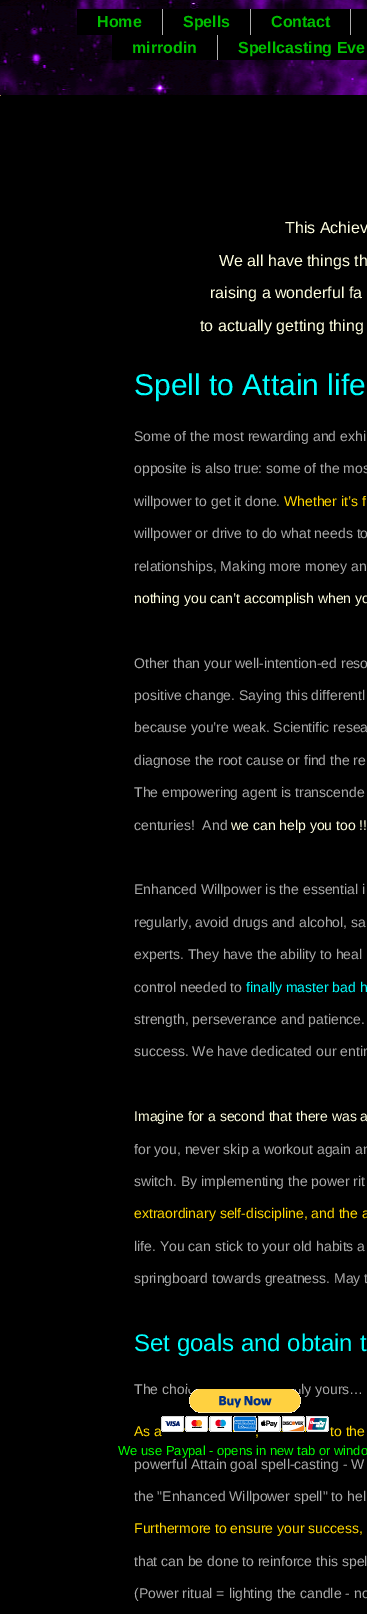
%!PS
<< /PageSize [367 1614] >> setpagedevice
/rgb { 3 { 255 div 3 1 roll } repeat setrgbcolor } def
/font { [ exch dup neg 0 0 3 -1 roll 0 0 ] selectfont } def
/text { moveto show } def
/picture { 5 dict begin { /h /w /y /x /name } { exch def } forall
  gsave x y translate w h scale
  w h 8 [w 0 0 h 0 0] name (r) file false 3 colorimage grestore end } def
0 1614 translate 1 -1 scale
4 setmiterlimit
255 255 255 rgb
0 0 367 1614 rectfill
(img_01.rgb) 0 0 367 95 picture
0 0 0 rgb
0 95 367 1519 rectfill
77 9 85 26 rectfill
174 174 174 rgb
162 9 1 26 rectfill
0 0 0 rgb
163 9 87 26 rectfill
174 174 174 rgb
250 9 1 26 rectfill
0 0 0 rgb
251 9 99 26 rectfill
174 174 174 rgb
350 9 1 26 rectfill
0 0 0 rgb
351 9 16 26 rectfill
112 35 105 25 rectfill
174 174 174 rgb
217 35 1 25 rectfill
0 0 0 rgb
218 35 149 25 rectfill
163 129 84 rgb
0 95 1 1 rectfill
/LiberationSans-Bold 16 font
0 191 0 rgb
(Home) 97 27 text
(Spells) 183 27 text
(Contact) 271 27 text
(mirrodin) 132 53 text
(Spellcasting Eve) 238 53 text
/LiberationSans-Regular 16 font
255 255 224 rgb
(This Achiev) 285 233 text
(We all have things th) 219 266 text
(raising a wonderful fa) 210 298 text
(to actually getting thing) 200 331 text
/LiberationSans-Regular 30 font
0 255 255 rgb
(Spell to Attain life) 134 395 text
/LiberationSans-Regular 14 font
169 169 169 rgb
(Some of the most rewarding and exhi) 134 441 text
(opposite is also true: some of the mos) 134 473 text
(willpower to get it done.) 134 506 text
255 215 0 rgb
(Whether it’s f) 284 506 text
169 169 169 rgb
(willpower or drive to do what needs to) 134 538 text
(relationships, Making more money an) 134 571 text
255 255 224 rgb
(nothing you can’t accomplish when yo) 134 603 text
169 169 169 rgb
(Other than your well-intention-ed reso) 134 668 text
(positive change. Saying this differentl) 134 700 text
(because you’re weak. Scientific resea) 134 732 text
(diagnose the root cause or find the re) 134 765 text
(The empowering agent is transcende) 134 797 text
(centuries!  And) 134 830 text
255 255 224 rgb
(we can help you too !!) 231 830 text
169 169 169 rgb
(Enhanced Willpower is the essential i) 134 894 text
(regularly, avoid drugs and alcohol, sa) 134 927 text
(experts. They have the ability to heal) 134 959 text
(control needed to) 134 992 text
0 255 255 rgb
(finally master bad h) 246 992 text
169 169 169 rgb
(strength, perseverance and patience.) 134 1024 text
(success. We have dedicated our entir) 134 1056 text
255 255 224 rgb
(Imagine for a second that there was a) 134 1121 text
169 169 169 rgb
(for you, never skip a workout again an) 134 1154 text
(switch. By implementing the power rit) 134 1186 text
255 215 0 rgb
(extraordinary self-discipline, and the a) 134 1218 text
169 169 169 rgb
(life. You can stick to your old habits a) 134 1251 text
(springboard towards greatness. May t) 134 1283 text
/LiberationSans-Regular 24 font
0 255 255 rgb
(Set goals and obtain t) 134 1351 text
/LiberationSans-Regular 14 font
169 169 169 rgb
(The choi) 134 1394 text
(ly yours…) 301 1394 text
255 215 0 rgb
(As a) 134 1436 text
(,) 255 1436 text
(to the) 330 1436 text
169 169 169 rgb
(powerful Attain goal spell-casting - W) 134 1469 text
(the "Enhanced Willpower spell" to hel) 134 1501 text
255 215 0 rgb
(Furthermore to ensure your success,) 134 1533 text
169 169 169 rgb
(that can be done to reinforce this spel) 134 1566 text
(\(Power ritual = lighting the candle - no) 134 1598 text
(img_02.rgb) 161 1389 168 43 picture
/LiberationSans-Regular 13 font
0 255 0 rgb
(We use Paypal - opens in new tab or windo) 118 1455 text
showpage
